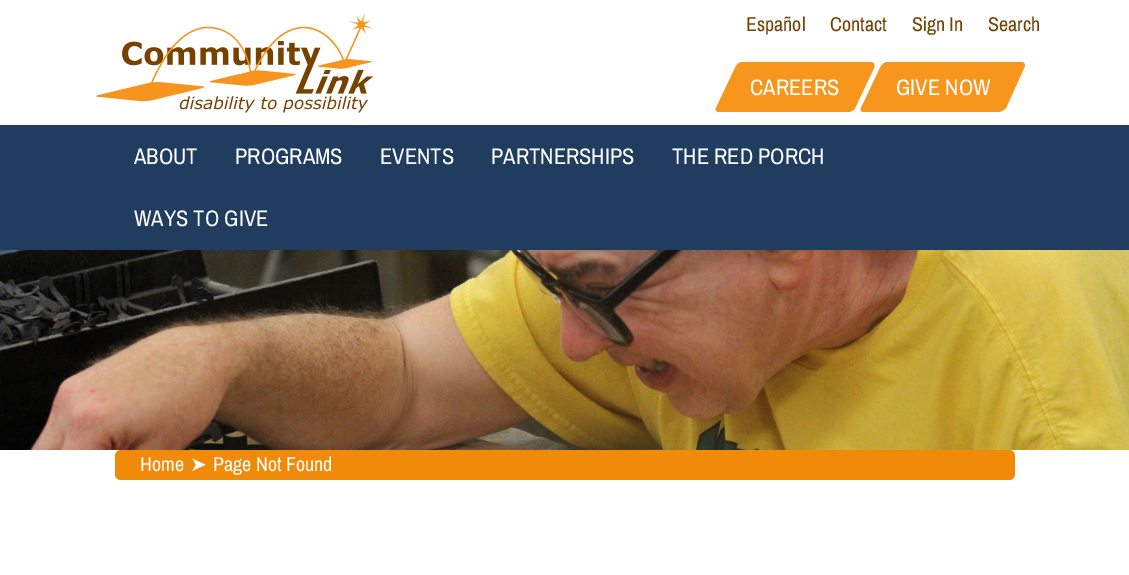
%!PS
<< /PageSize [1129 575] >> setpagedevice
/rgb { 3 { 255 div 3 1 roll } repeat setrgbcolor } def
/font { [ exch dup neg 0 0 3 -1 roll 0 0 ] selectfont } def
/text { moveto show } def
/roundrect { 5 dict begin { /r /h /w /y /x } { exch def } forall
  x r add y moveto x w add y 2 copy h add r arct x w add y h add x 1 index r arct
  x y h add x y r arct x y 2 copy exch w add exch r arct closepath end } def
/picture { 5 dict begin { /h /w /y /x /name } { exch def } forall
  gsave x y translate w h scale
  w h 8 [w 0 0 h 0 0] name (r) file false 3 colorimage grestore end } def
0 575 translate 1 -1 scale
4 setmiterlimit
255 255 255 rgb
0 0 1129 575 rectfill
32 61 96 rgb
0 125 1129 125 rectfill
(img_01.rgb) 96 13 278 100 picture
247 149 29 rgb
742 62 moveto 129 0 rlineto 3 0 4 3 3 6 rcurveto -19 40 rlineto -1 2 -4 4 -7 4 rcurveto -129 0 rlineto -3 0 -4 -2 -3 -4 rcurveto 19 -40 rlineto 1 -3 4 -6 7 -6 rcurveto closepath fill
887 62 moveto 135 0 rlineto 2 0 4 3 2 6 rcurveto -18 40 rlineto -2 2 -5 4 -8 4 rcurveto -134 0 rlineto -3 0 -4 -2 -3 -4 rcurveto 19 -40 rlineto 1 -3 5 -6 7 -6 rcurveto closepath fill
(img_02.rgb) 0 250 1129 200 picture
241 137 9 rgb
115 450 900 30 6 roundrect fill
/ArchivoNarrow-Regular 20 font
117 65 0 rgb
(Español) 746 31 text
(Contact) 830 31 text
(Sign In) 912 31 text
(Search) 988 31 text
/ArchivoNarrow-Regular 22.5 font
255 255 255 rgb
(CAREERS) 750 95 text
(GIVE NOW) 896 95 text
(ABOUT) 134 164 text
(PROGRAMS) 235 164 text
(EVENTS) 380 164 text
(PARTNERSHIPS) 491 164 text
(THE RED PORCH) 672 164 text
(WAYS TO GIVE) 134 226 text
/ArchivoNarrow-Regular 20 font
(Home) 140 471 text
/DejaVuSans-Regular 20 font
(➤) 190 471 text
/ArchivoNarrow-Regular 20 font
(Page Not Found) 213 471 text
showpage
